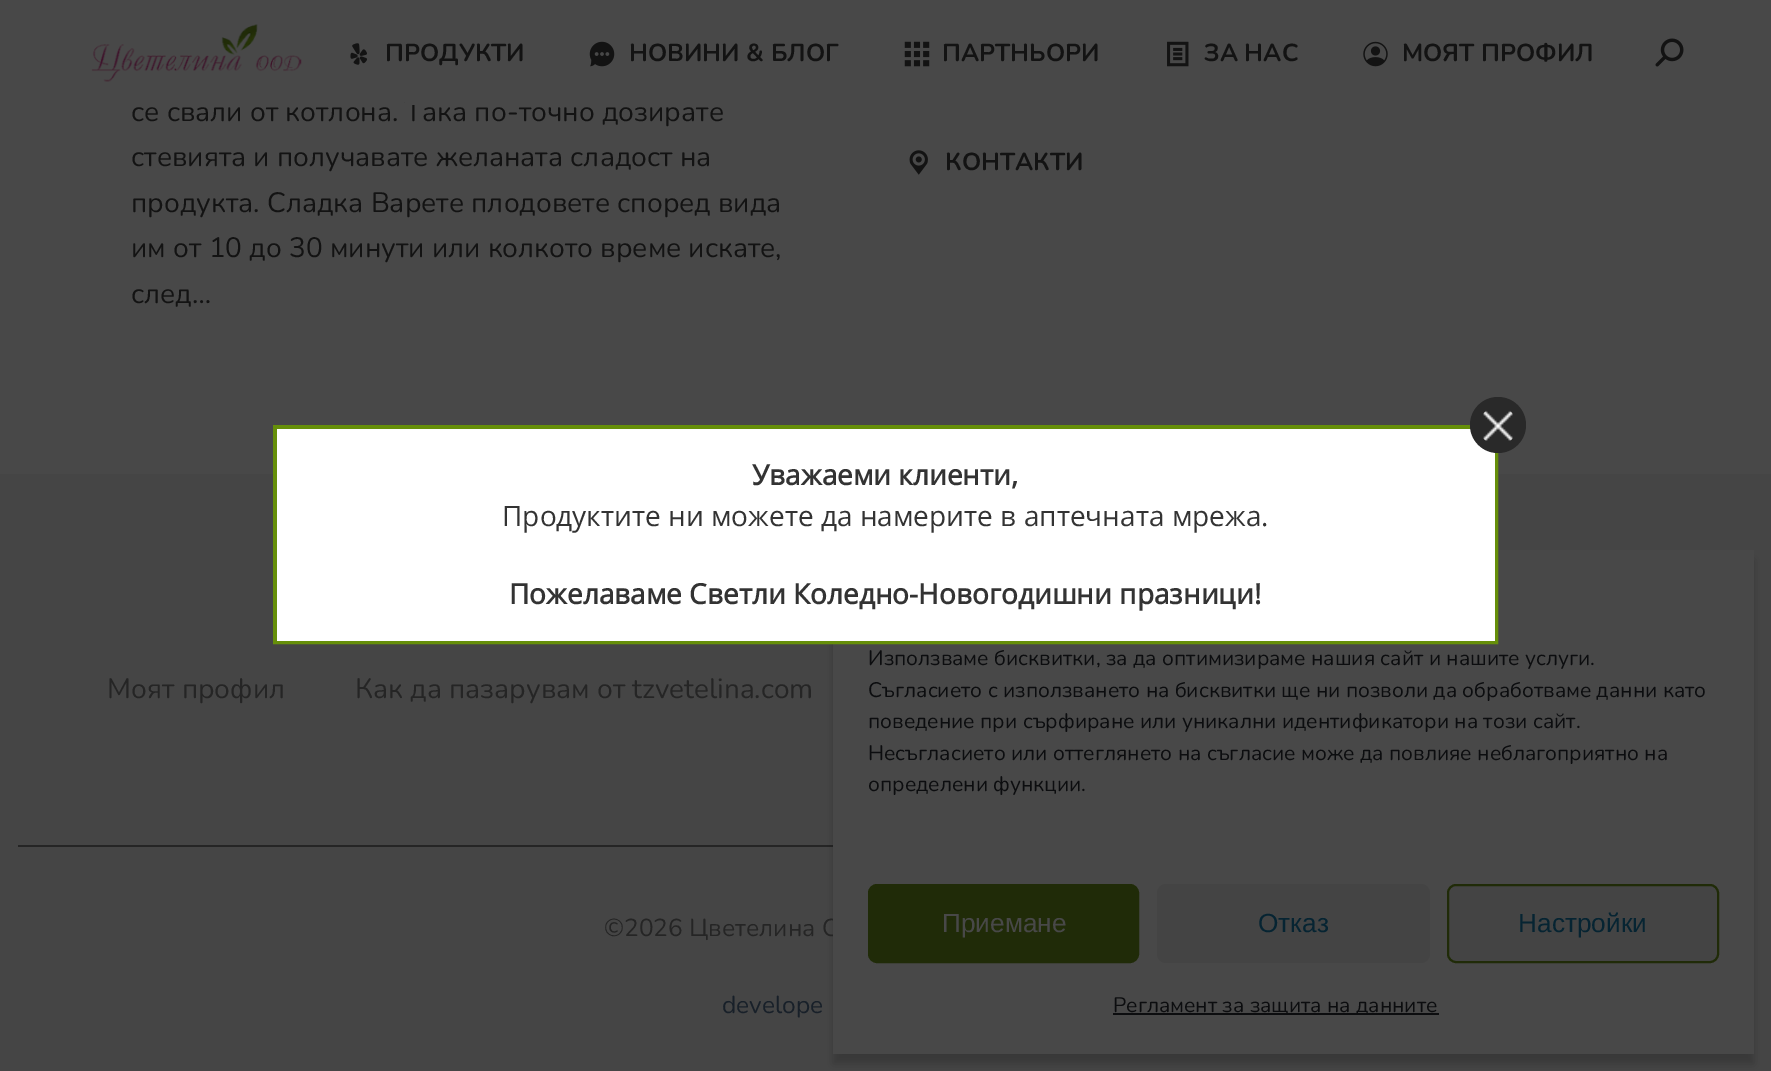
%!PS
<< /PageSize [1771 1071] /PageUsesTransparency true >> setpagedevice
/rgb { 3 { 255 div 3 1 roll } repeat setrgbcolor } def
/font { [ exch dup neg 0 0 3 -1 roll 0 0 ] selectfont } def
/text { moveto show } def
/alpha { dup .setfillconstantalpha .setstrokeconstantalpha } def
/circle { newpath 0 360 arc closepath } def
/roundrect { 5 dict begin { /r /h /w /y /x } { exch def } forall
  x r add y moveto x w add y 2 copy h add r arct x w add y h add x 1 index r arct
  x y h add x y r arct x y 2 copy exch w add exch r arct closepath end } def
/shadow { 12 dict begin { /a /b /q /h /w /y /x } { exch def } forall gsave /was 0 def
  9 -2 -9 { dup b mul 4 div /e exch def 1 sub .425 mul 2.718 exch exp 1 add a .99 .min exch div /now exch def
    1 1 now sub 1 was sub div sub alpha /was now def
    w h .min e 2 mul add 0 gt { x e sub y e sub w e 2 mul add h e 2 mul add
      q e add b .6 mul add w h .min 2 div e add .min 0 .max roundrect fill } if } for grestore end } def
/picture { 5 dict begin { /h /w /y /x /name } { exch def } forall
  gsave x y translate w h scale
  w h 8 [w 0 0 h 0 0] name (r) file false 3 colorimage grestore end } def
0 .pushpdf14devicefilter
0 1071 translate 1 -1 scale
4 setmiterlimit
72 72 72 rgb
0 0 1771 1071 rectfill
(img_01.rgb) 91 24 211 58 picture
(img_02.rgb) 350 43 17 22 picture
(img_03.rgb) 589 41 26 26 picture
(img_04.rgb) 904 41 26 26 picture
(img_05.rgb) 1167 41 22 26 picture
(img_06.rgb) 1363 41 25 26 picture
(img_07.rgb) 909 150 19 25 picture
(img_08.rgb) 1655 38 29 29 picture
69 69 69 rgb
0 474 1771 597 rectfill
37 37 37 rgb
18 845 815 2 rectfill
6 6 6 rgb
833 560 921 504 0 5 0.23 shadow
/Nunito-Bold 24.5 font
19 19 19 rgb
(ПРОДУКТИ) 385 61 text
(НОВИНИ & БЛОГ) 629 61 text
(ПАРТНЬОРИ) 942 61 text
(ЗА НАС) 1204 61 text
(МОЯТ ПРОФИЛ) 1402 61 text
(КОНТАКТИ) 945 170 text
/Nunito-Regular 28 font
(се свали от котлона. Така по-точно дозирате) 131 121 text
72 72 72 rgb
405 101 18 4 rectfill
19 19 19 rgb
(стевията и получавате желаната сладост на) 131 166 text
(продукта. Сладка Варете плодовете според вида) 131 212 text
(им от 10 до 30 минути или колкото време искате,) 131 257 text
(след…) 131 303 text
37 37 37 rgb
(Моят профил) 107 698 text
(Как да пазарувам от tzvetelina.com) 355 698 text
/Nunito-Regular 24.5 font
(©2026 Цветелина О) 604 936 text
24 32 41 rgb
(develope) 722 1013 text
72 72 72 rgb
833 550 921 504 rectfill
102 143 10 rgb
4 setlinewidth
275 427 1221 215 rectstroke
255 255 255 rgb
277 429 1218 212 rectfill
41 41 41 rgb
1498 425 28 circle fill
(img_09.rgb) 1483 410 30 31 picture
/OpenSans-Bold 28 font
51 51 51 rgb
(Пожелаваме Светли Коледно-Новогодишни празници!) 509 604 text
/OpenSans-Regular 28 font
(Продуктите ни можете да намерите в аптечната мрежа.) 502 526 text
/OpenSans-Bold 28 font
(Уважаеми клиенти,) 752 485 text
/Nunito-Regular 21 font
12 13 15 rgb
(Използваме бисквитки, за да оптимизираме нашия сайт и нашите услуги.) 868 665 text
(Съгласието с използването на бисквитки ще ни позволи да обработваме данни като) 868 697 text
(поведение при сърфиране или уникални идентификатори на този сайт.) 868 728 text
(Несъгласието или оттеглянето на съгласие може да повлияе неблагоприятно на) 868 760 text
(определени функции.) 868 791 text
32 43 8 rgb
869 885 269 77 8 roundrect gsave fill grestore
2 setlinewidth
stroke
/LiberationSans-Regular 26.25 font
72 72 72 rgb
(Приемане) 942 932 text
68 68 68 rgb
1157 884 273 79 9 roundrect fill
6 36 50 rgb
(Отказ) 1258 932 text
68 68 68 rgb
1448 885 270 77 8 roundrect gsave fill grestore
32 43 8 rgb
stroke
6 36 50 rgb
(Настройки) 1518 932 text
12 13 15 rgb
1113 1013 326 2 rectfill
/Nunito-Regular 21 font
(Регламент за защита на данните) 1113 1012 text
.poppdf14devicefilter showpage
